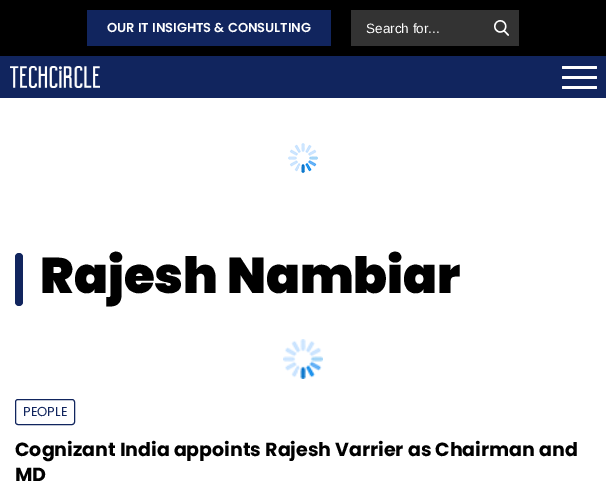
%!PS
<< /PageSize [606 489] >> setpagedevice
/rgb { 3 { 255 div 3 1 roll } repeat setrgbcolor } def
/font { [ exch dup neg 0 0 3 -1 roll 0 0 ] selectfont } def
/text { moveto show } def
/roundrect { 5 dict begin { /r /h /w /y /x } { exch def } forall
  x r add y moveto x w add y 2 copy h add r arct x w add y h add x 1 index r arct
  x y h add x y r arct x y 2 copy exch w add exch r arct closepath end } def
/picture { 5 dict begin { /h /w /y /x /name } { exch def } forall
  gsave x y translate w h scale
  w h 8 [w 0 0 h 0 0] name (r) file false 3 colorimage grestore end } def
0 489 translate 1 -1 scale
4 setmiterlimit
255 255 255 rgb
0 0 606 489 rectfill
0 0 0 rgb
0 0 606 56 rectfill
17 37 94 rgb
87 10 244 36 rectfill
51 51 51 rgb
351 10 168 36 rectfill
(img_01.rgb) 494 20 15 16 picture
17 37 94 rgb
0 56 606 42 rectfill
(img_02.rgb) 10 66 90 22 picture
255 255 255 rgb
562 76 35 3 1 roundrect fill
562 66 35 3 1 roundrect fill
562 86 35 3 1 roundrect fill
(img_03.rgb) 288 143 30 30 picture
17 37 94 rgb
15 253 8 53 4 roundrect fill
(img_04.rgb) 283 339 40 40 picture
15.5 399.5 59 25 2.5 roundrect stroke
/Poppins-SemiBold 13 font
255 255 255 rgb
(OUR IT INSIGHTS & CONSULTING) 107 32 text
/LiberationSans-Regular 13.5 font
(Search for...) 366 33 text
/Poppins-Black 50 font
0 0 0 rgb
(Rajesh Nambiar) 40 293 text
/Poppins-Regular 13 font
17 37 94 rgb
(PEOPLE) 23 416 text
/Poppins-Bold 19 font
0 0 0 rgb
(Cognizant India appoints Rajesh Varrier as Chairman and) 15 456 text
(MD) 15 481 text
showpage
